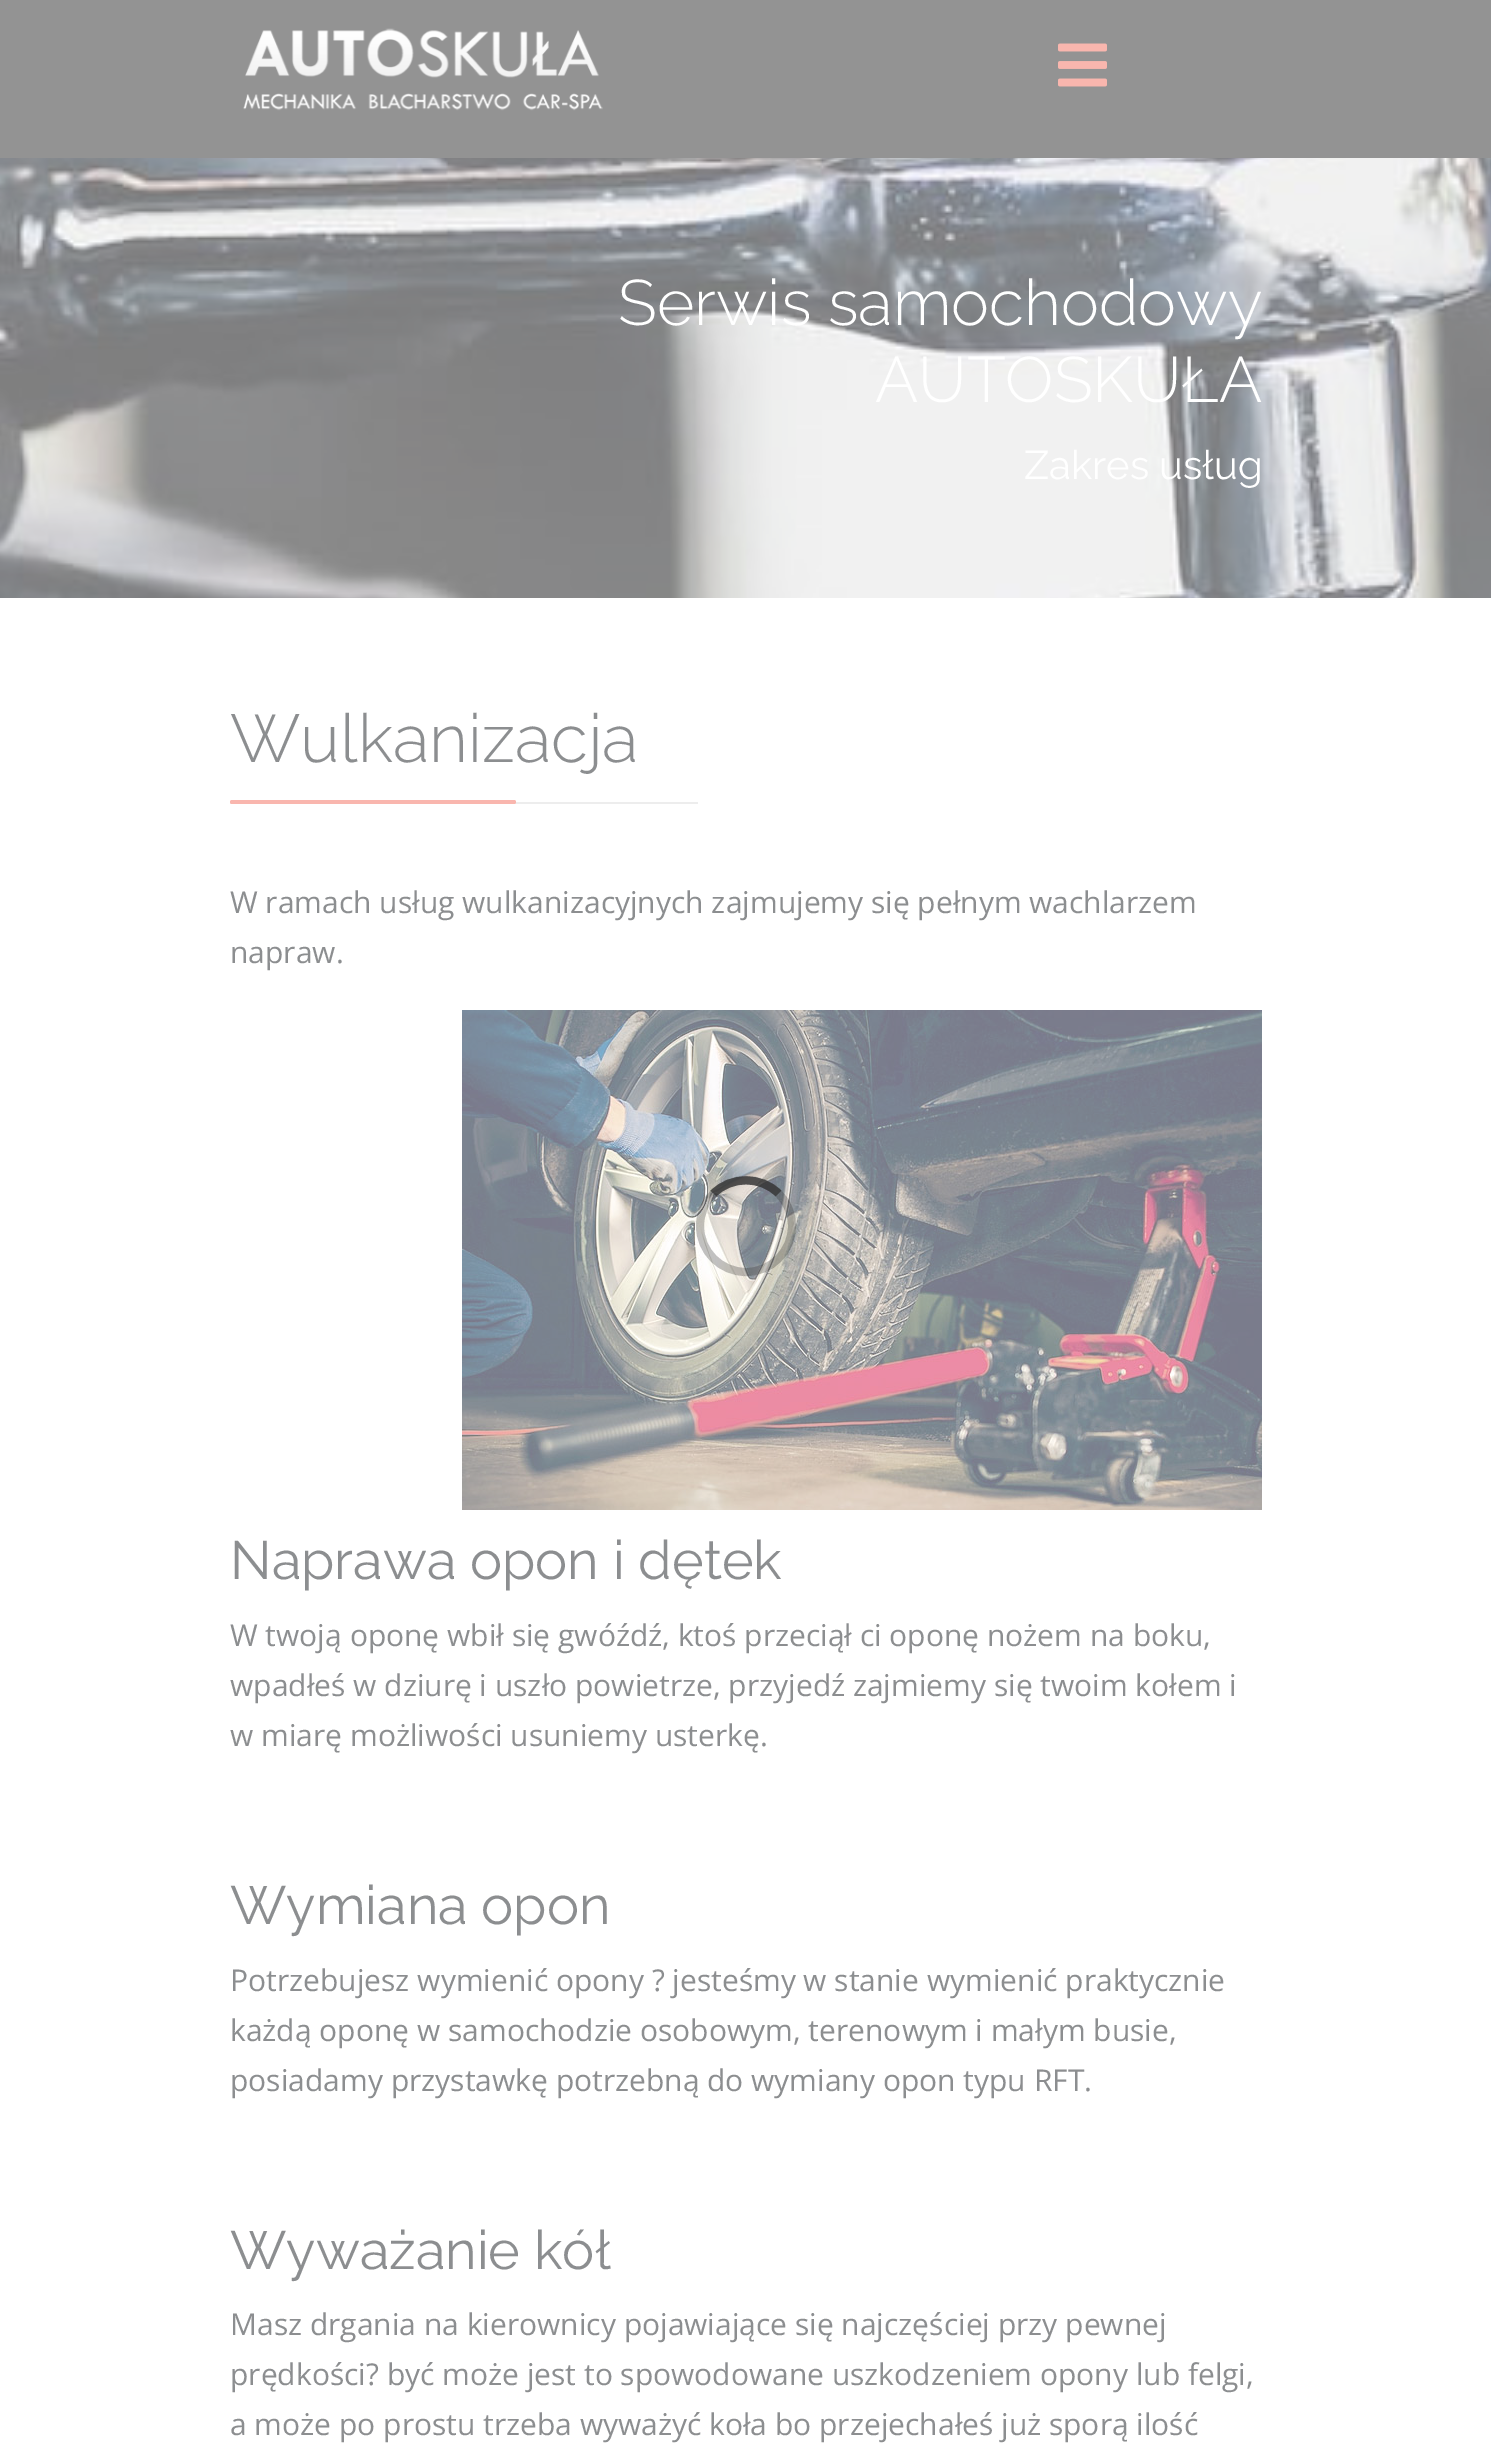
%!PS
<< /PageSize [1491 2457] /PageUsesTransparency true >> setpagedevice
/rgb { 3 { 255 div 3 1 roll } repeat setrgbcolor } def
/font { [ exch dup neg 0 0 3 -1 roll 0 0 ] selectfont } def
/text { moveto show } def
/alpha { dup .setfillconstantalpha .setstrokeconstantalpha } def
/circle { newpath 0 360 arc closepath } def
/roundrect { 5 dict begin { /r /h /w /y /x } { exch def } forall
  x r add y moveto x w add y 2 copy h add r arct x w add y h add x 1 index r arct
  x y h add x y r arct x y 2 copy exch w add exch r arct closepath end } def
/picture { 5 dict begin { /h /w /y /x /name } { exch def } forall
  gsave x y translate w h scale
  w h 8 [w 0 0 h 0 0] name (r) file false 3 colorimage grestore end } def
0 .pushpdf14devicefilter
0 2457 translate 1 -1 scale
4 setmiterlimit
255 255 255 rgb
0 0 1491 2457 rectfill
147 147 147 rgb
0 0 1491 158 rectfill
(img_01.rgb) 243 28 360 83 picture
(img_02.rgb) 1058 43 49 44 picture
(img_03.rgb) 0 158 1491 440 picture
237 237 237 rgb
230 802 468 2 rectfill
249 182 174 rgb
230 800 286 4 2 roundrect fill
(img_04.rgb) 462 1010 800 500 picture
0.3 alpha
51 51 51 rgb
8 setlinewidth
746 1226 46 circle stroke
0.76 alpha
713.5 1193.5 moveto 17.5 -17.5 47.5 -17.5 65 0 rcurveto stroke
/Raleway-Light 64 font
1 alpha
255 255 255 rgb
(Serwis samochodowy) 618 325 text
(AUTOSKUŁA) 875 402 text
/Raleway-Regular 40 font
(Zakres usług) 1024 479 text
/Raleway-Light 67.5 font
140 142 144 rgb
(Wulkanizacja) 230 762 text
/OpenSans-Regular 30 font
(W ramach usług wulkanizacyjnych zajmujemy się pełnym wachlarzem) 230 913 text
(napraw.) 230 963 text
/Raleway-Regular 54 font
(Naprawa opon i dętek) 230 1579 text
/OpenSans-Regular 30 font
(W twoją oponę wbił się gwóźdź, ktoś przeciął ci oponę nożem na boku,) 230 1646 text
(wpadłeś w dziurę i uszło powietrze, przyjedź zajmiemy się twoim kołem i) 230 1696 text
(w miarę możliwości usuniemy usterkę.) 230 1746 text
/Raleway-Regular 54 font
(Wymiana opon) 230 1924 text
/OpenSans-Regular 30 font
(Potrzebujesz wymienić opony ? jesteśmy w stanie wymienić praktycznie) 230 1991 text
(każdą oponę w samochodzie osobowym, terenowym i małym busie,) 230 2041 text
(posiadamy przystawkę potrzebną do wymiany opon typu RFT.) 230 2091 text
/Raleway-Regular 54 font
(Wyważanie kół) 230 2269 text
/OpenSans-Regular 30 font
(Masz drgania na kierownicy pojawiające się najczęściej przy pewnej) 230 2335 text
(prędkości? być może jest to spowodowane uszkodzeniem opony lub felgi,) 230 2385 text
(a może po prostu trzeba wyważyć koła bo przejechałeś już sporą ilość) 230 2435 text
.poppdf14devicefilter showpage
